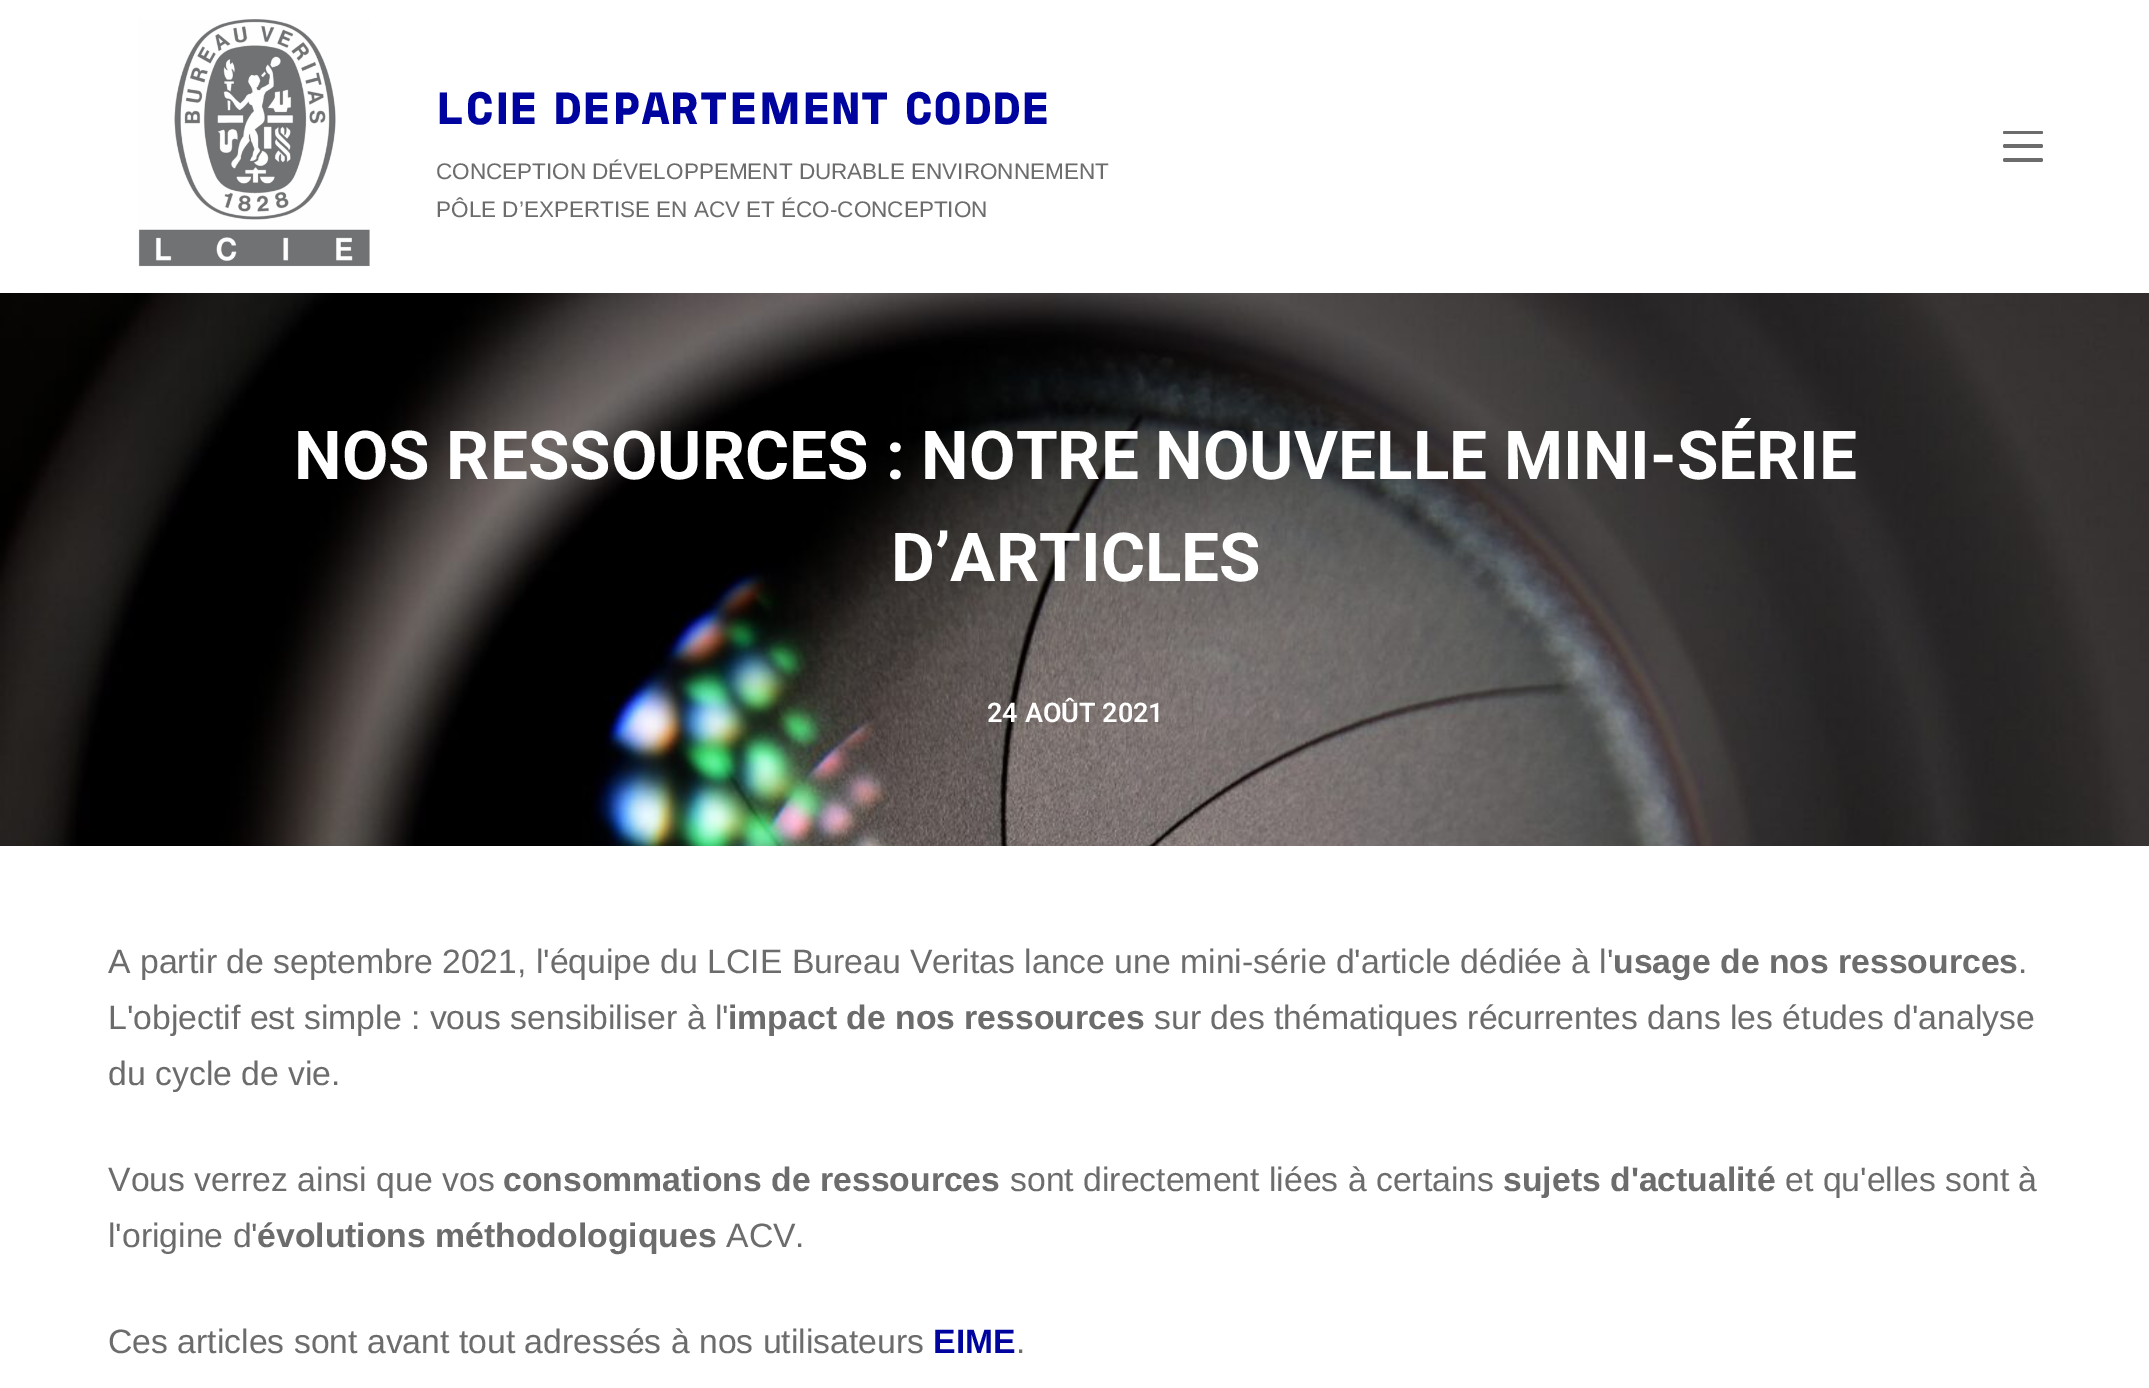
%!PS
<< /PageSize [2149 1388] >> setpagedevice
/rgb { 3 { 255 div 3 1 roll } repeat setrgbcolor } def
/font { [ exch dup neg 0 0 3 -1 roll 0 0 ] selectfont } def
/text { moveto show } def
/roundrect { 5 dict begin { /r /h /w /y /x } { exch def } forall
  x r add y moveto x w add y 2 copy h add r arct x w add y h add x 1 index r arct
  x y h add x y r arct x y 2 copy exch w add exch r arct closepath end } def
/picture { 5 dict begin { /h /w /y /x /name } { exch def } forall
  gsave x y translate w h scale
  w h 8 [w 0 0 h 0 0] name (r) file false 3 colorimage grestore end } def
0 1388 translate 1 -1 scale
4 setmiterlimit
255 255 255 rgb
0 0 2149 1388 rectfill
(img_01.rgb) 138 19 232 248 picture
108 108 108 rgb
2003 131 40 3 1.5 roundrect fill
2003 144 40 4 2 roundrect fill
2003 158 40 4 2 roundrect fill
(img_02.rgb) 0 293 2149 553 picture
/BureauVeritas-ExtraBold 45 font
0 4 158 rgb
(LCIE DEPARTEMENT CODDE) 436 124 text
/LiberationSans-Regular 22.5 font
108 108 108 rgb
(CONCEPTION DÉVELOPPEMENT DURABLE ENVIRONNEMENT) 436 179 text
(PÔLE D’EXPERTISE EN ACV ET ÉCO-CONCEPTION) 436 217 text
/Roboto-Bold 67.5 font
255 255 255 rgb
(NOS RESSOURCES : NOTRE NOUVELLE MINI-SÉRIE) 294 479 text
(D’ARTICLES) 891 581 text
/Roboto-SemiBold 27 font
(24 AOÛT 2021) 987 722 text
/LiberationSans-Regular 33.75 font
108 108 108 rgb
(A partir de septembre 2021, l'équipe du LCIE Bureau Veritas lance une mini-série d'article dédiée à l') 108 973 text
/LiberationSans-Bold 33.75 font
(usage de nos ressources) 1613 973 text
/LiberationSans-Regular 33.75 font
(.) 2018 973 text
(L'objectif est simple : vous sensibiliser à l') 108 1029 text
/LiberationSans-Bold 33.75 font
(impact de nos ressources) 728 1029 text
/LiberationSans-Regular 33.75 font
(sur des thématiques récurrentes dans les études d'analyse) 1154 1029 text
(du cycle de vie.) 108 1085 text
(Vous verrez ainsi que vos) 108 1191 text
/LiberationSans-Bold 33.75 font
(consommations de ressources) 503 1191 text
/LiberationSans-Regular 33.75 font
(sont directement liées à certains) 1010 1191 text
/LiberationSans-Bold 33.75 font
(sujets d'actualité) 1503 1191 text
/LiberationSans-Regular 33.75 font
(et qu'elles sont à) 1785 1191 text
(l'origine d') 108 1247 text
/LiberationSans-Bold 33.75 font
(évolutions méthodologiques) 257 1247 text
/LiberationSans-Regular 33.75 font
(ACV.) 726 1247 text
(Ces articles sont avant tout adressés à nos utilisateurs) 108 1353 text
/LiberationSans-Bold 33.75 font
0 4 158 rgb
(EIME) 933 1353 text
/LiberationSans-Regular 33.75 font
108 108 108 rgb
(.) 1016 1353 text
showpage
